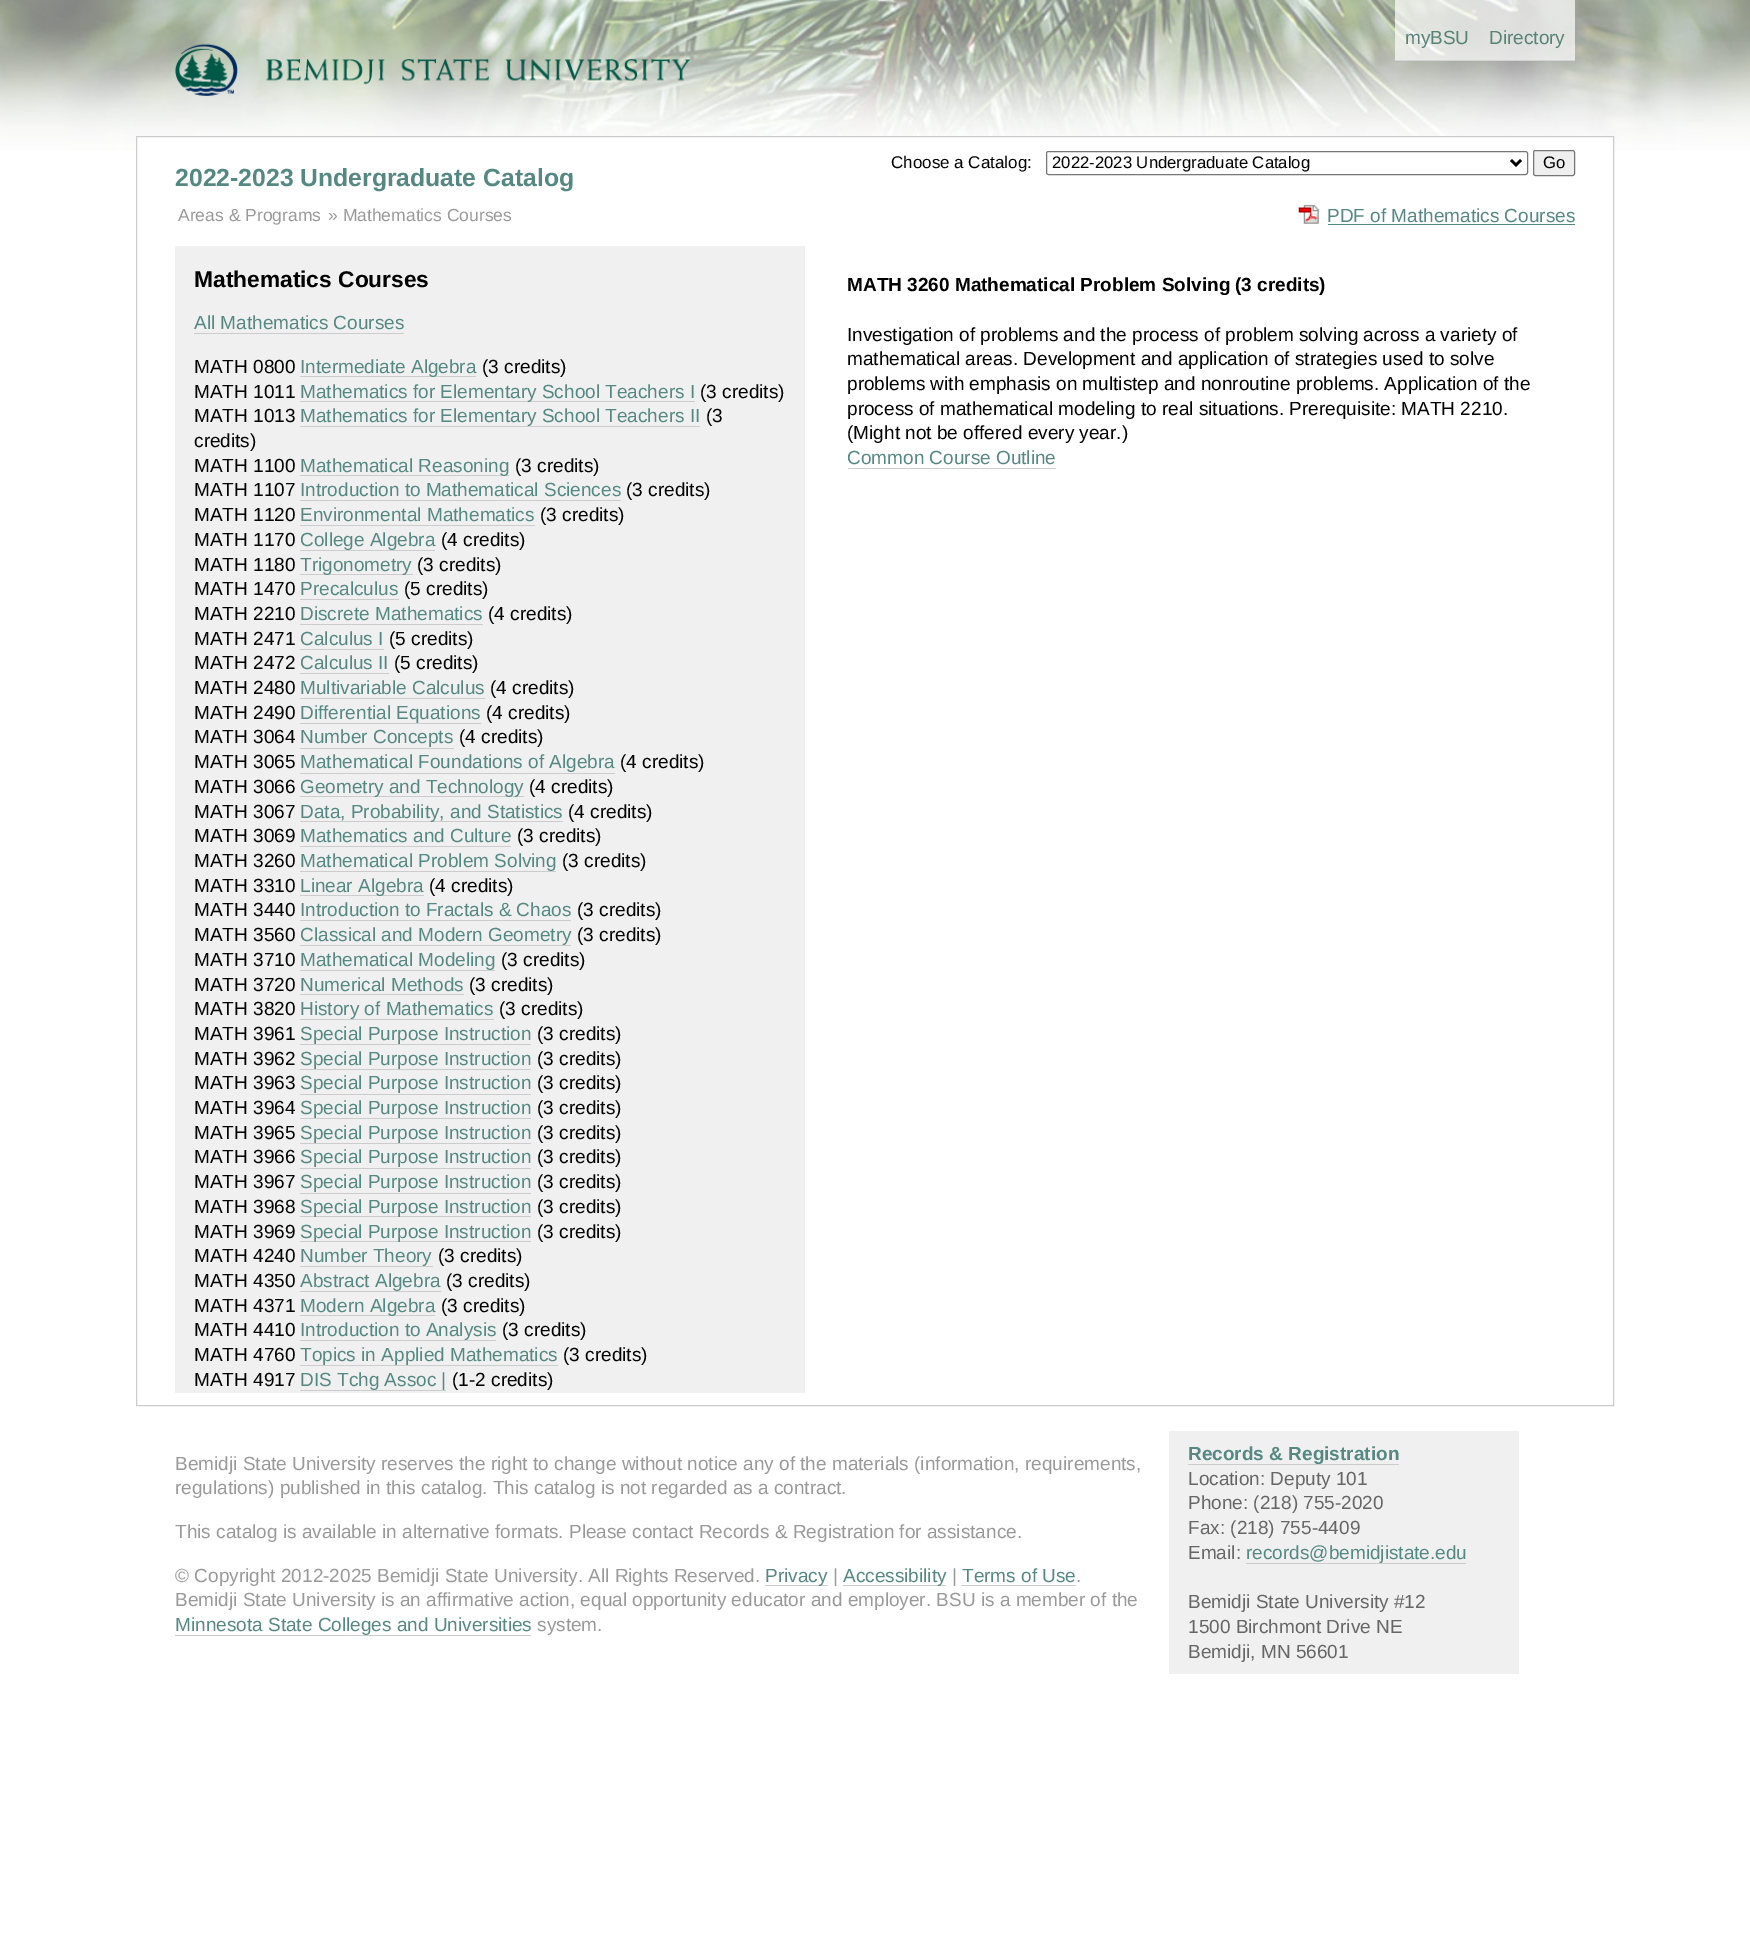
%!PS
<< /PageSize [1750 1960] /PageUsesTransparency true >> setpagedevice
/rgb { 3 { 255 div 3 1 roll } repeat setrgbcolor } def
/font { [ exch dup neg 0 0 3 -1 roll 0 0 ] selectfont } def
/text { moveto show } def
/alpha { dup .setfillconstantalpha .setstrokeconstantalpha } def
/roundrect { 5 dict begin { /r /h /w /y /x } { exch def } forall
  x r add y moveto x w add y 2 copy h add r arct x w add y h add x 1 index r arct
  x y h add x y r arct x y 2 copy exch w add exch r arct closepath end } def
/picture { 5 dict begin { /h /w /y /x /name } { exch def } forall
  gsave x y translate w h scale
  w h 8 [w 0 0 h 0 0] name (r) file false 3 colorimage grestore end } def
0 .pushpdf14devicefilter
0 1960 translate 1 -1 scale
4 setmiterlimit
255 255 255 rgb
0 0 1750 1960 rectfill
(img_01.rgb) 0 0 1750 150 picture
0.7 alpha
1395 0 84 61 rectfill
204 204 204 rgb
1395 60 84 1 rectfill
255 255 255 rgb
1479 0 96 61 rectfill
204 204 204 rgb
1479 60 96 1 rectfill
1 alpha
(img_02.rgb) 175 43 516 53 picture
255 255 255 rgb
137 137 1476 13 rectfill
204 204 204 rgb
136.5 136.5 1477 1269 rectstroke
118 118 118 rgb
1046.5 151.5 481 23 2 roundrect stroke
0 0 0 rgb
2.5 setlinewidth
1511 160 moveto 5 5 rlineto 5 -5 rlineto stroke
239 239 239 rgb
1533.5 150.5 41 25 2 roundrect gsave fill grestore
118 118 118 rgb
1 setlinewidth
stroke
(img_03.rgb) 1298 204 21 20 picture
85 136 130 rgb
1328 224 247 1 rectfill
240 240 240 rgb
175 246 630 1147 rectfill
204 204 204 rgb
194 333 210 1 rectfill
300 376 176 1 rectfill
300 401 395 1 rectfill
300 426 400 1 rectfill
300 475 209 1 rectfill
300 500 321 1 rectfill
300 525 235 1 rectfill
300 550 135 1 rectfill
300 574 113 1 rectfill
300 599 99 1 rectfill
300 624 183 1 rectfill
300 649 84 1 rectfill
300 673 89 1 rectfill
300 698 185 1 rectfill
300 723 181 1 rectfill
300 748 154 1 rectfill
300 773 315 1 rectfill
300 796 224 1 rectfill
300 821 263 1 rectfill
300 846 211 1 rectfill
300 871 256 1 rectfill
300 895 124 1 rectfill
300 920 271 1 rectfill
300 945 271 1 rectfill
300 970 195 1 rectfill
300 994 164 1 rectfill
300 1019 194 1 rectfill
300 1044 231 1 rectfill
300 1069 231 1 rectfill
300 1094 231 1 rectfill
300 1118 231 1 rectfill
300 1143 231 1 rectfill
300 1168 231 1 rectfill
300 1193 231 1 rectfill
300 1216 231 1 rectfill
300 1241 231 1 rectfill
300 1266 133 1 rectfill
300 1291 141 1 rectfill
300 1315 135 1 rectfill
300 1340 196 1 rectfill
300 1365 258 1 rectfill
300 1390 146 1 rectfill
848 468 208 1 rectfill
765 1585 63 1 rectfill
843 1585 103 1 rectfill
961 1585 115 1 rectfill
175 1635 356 1 rectfill
240 240 240 rgb
1169 1431 350 243 rectfill
204 204 204 rgb
1188 1464 211 1 rectfill
1246 1563 220 1 rectfill
/LiberationSans-Regular 19 font
86 131 118 rgb
(my) 1405 44 text
(BSU) 1430 44 text
(Directory) 1489 44 text
/LiberationSans-Regular 17 font
0 0 0 rgb
(Choose a Catalog:) 891 168 text
/LiberationSans-Regular 16.7 font
(2022-2023 Undergraduate Catalog) 1052 168 text
(Go) 1543 168 text
/LiberationSans-Bold 24.75 font
85 136 130 rgb
(2022-2023 Undergraduate Catalog) 175 186 text
/LiberationSans-Regular 17.5 font
153 153 153 rgb
(Areas & Programs) 178 221 text
(» Mathematics Courses) 328 221 text
/LiberationSans-Regular 19 font
85 136 130 rgb
(PDF of Mathematics Courses) 1327 222 text
/LiberationSans-Bold 22.75 font
0 0 0 rgb
(Mathematics Courses) 194 287 text
/LiberationSans-Regular 19 font
85 136 130 rgb
(All Mathematics Courses) 194 329 text
0 0 0 rgb
(MATH 0800) 194 373 text
85 136 130 rgb
(Intermediate Algebra) 300 373 text
0 0 0 rgb
(\(3 credits\)) 482 373 text
(MATH 1011) 194 398 text
85 136 130 rgb
(Mathematics for Elementary School Teachers I) 300 398 text
0 0 0 rgb
(\(3 credits\)) 700 398 text
(MATH 1013) 194 422 text
85 136 130 rgb
(Mathematics for Elementary School Teachers II) 300 422 text
0 0 0 rgb
(\(3) 706 422 text
(credits\)) 194 447 text
(MATH 1100) 194 472 text
85 136 130 rgb
(Mathematical Reasoning) 300 472 text
0 0 0 rgb
(\(3 credits\)) 515 472 text
(MATH 1107) 194 496 text
85 136 130 rgb
(Introduction to Mathematical Sciences) 300 496 text
0 0 0 rgb
(\(3 credits\)) 626 496 text
(MATH 1120) 194 521 text
85 136 130 rgb
(Environmental Mathematics) 300 521 text
0 0 0 rgb
(\(3 credits\)) 540 521 text
(MATH 1170) 194 546 text
85 136 130 rgb
(College Algebra) 300 546 text
0 0 0 rgb
(\(4 credits\)) 441 546 text
(MATH 1180) 194 571 text
85 136 130 rgb
(Trigonometry) 300 571 text
0 0 0 rgb
(\(3 credits\)) 417 571 text
(MATH 1470) 194 595 text
85 136 130 rgb
(Precalculus) 300 595 text
0 0 0 rgb
(\(5 credits\)) 404 595 text
(MATH 2210) 194 620 text
85 136 130 rgb
(Discrete Mathematics) 300 620 text
0 0 0 rgb
(\(4 credits\)) 488 620 text
(MATH 2471) 194 645 text
85 136 130 rgb
(Calculus I) 300 645 text
0 0 0 rgb
(\(5 credits\)) 389 645 text
(MATH 2472) 194 669 text
85 136 130 rgb
(Calculus II) 300 669 text
0 0 0 rgb
(\(5 credits\)) 394 669 text
(MATH 2480) 194 694 text
85 136 130 rgb
(Multivariable Calculus) 300 694 text
0 0 0 rgb
(\(4 credits\)) 490 694 text
(MATH 2490) 194 719 text
85 136 130 rgb
(Differential Equations) 300 719 text
0 0 0 rgb
(\(4 credits\)) 486 719 text
(MATH 3064) 194 743 text
85 136 130 rgb
(Number Concepts) 300 743 text
0 0 0 rgb
(\(4 credits\)) 459 743 text
(MATH 3065) 194 768 text
85 136 130 rgb
(Mathematical Foundations of Algebra) 300 768 text
0 0 0 rgb
(\(4 credits\)) 620 768 text
(MATH 3066) 194 793 text
85 136 130 rgb
(Geometry and Technology) 300 793 text
0 0 0 rgb
(\(4 credits\)) 529 793 text
(MATH 3067) 194 818 text
85 136 130 rgb
(Data, Probability, and Statistics) 300 818 text
0 0 0 rgb
(\(4 credits\)) 568 818 text
(MATH 3069) 194 842 text
85 136 130 rgb
(Mathematics and Culture) 300 842 text
0 0 0 rgb
(\(3 credits\)) 517 842 text
(MATH 3260) 194 867 text
85 136 130 rgb
(Mathematical Problem Solving) 300 867 text
0 0 0 rgb
(\(3 credits\)) 562 867 text
(MATH 3310) 194 892 text
85 136 130 rgb
(Linear Algebra) 300 892 text
0 0 0 rgb
(\(4 credits\)) 429 892 text
(MATH 3440) 194 916 text
85 136 130 rgb
(Introduction to Fractals & Chaos) 300 916 text
0 0 0 rgb
(\(3 credits\)) 577 916 text
(MATH 3560) 194 941 text
85 136 130 rgb
(Classical and Modern Geometry) 300 941 text
0 0 0 rgb
(\(3 credits\)) 577 941 text
(MATH 3710) 194 966 text
85 136 130 rgb
(Mathematical Modeling) 300 966 text
0 0 0 rgb
(\(3 credits\)) 501 966 text
(MATH 3720) 194 991 text
85 136 130 rgb
(Numerical Methods) 300 991 text
0 0 0 rgb
(\(3 credits\)) 469 991 text
(MATH 3820) 194 1015 text
85 136 130 rgb
(History of Mathematics) 300 1015 text
0 0 0 rgb
(\(3 credits\)) 499 1015 text
(MATH 3961) 194 1040 text
85 136 130 rgb
(Special Purpose Instruction) 300 1040 text
0 0 0 rgb
(\(3 credits\)) 537 1040 text
(MATH 3962) 194 1065 text
85 136 130 rgb
(Special Purpose Instruction) 300 1065 text
0 0 0 rgb
(\(3 credits\)) 537 1065 text
(MATH 3963) 194 1089 text
85 136 130 rgb
(Special Purpose Instruction) 300 1089 text
0 0 0 rgb
(\(3 credits\)) 537 1089 text
(MATH 3964) 194 1114 text
85 136 130 rgb
(Special Purpose Instruction) 300 1114 text
0 0 0 rgb
(\(3 credits\)) 537 1114 text
(MATH 3965) 194 1139 text
85 136 130 rgb
(Special Purpose Instruction) 300 1139 text
0 0 0 rgb
(\(3 credits\)) 537 1139 text
(MATH 3966) 194 1163 text
85 136 130 rgb
(Special Purpose Instruction) 300 1163 text
0 0 0 rgb
(\(3 credits\)) 537 1163 text
(MATH 3967) 194 1188 text
85 136 130 rgb
(Special Purpose Instruction) 300 1188 text
0 0 0 rgb
(\(3 credits\)) 537 1188 text
(MATH 3968) 194 1213 text
85 136 130 rgb
(Special Purpose Instruction) 300 1213 text
0 0 0 rgb
(\(3 credits\)) 537 1213 text
(MATH 3969) 194 1238 text
85 136 130 rgb
(Special Purpose Instruction) 300 1238 text
0 0 0 rgb
(\(3 credits\)) 537 1238 text
(MATH 4240) 194 1262 text
85 136 130 rgb
(Number Theory) 300 1262 text
0 0 0 rgb
(\(3 credits\)) 438 1262 text
(MATH 4350) 194 1287 text
85 136 130 rgb
(Abstract Algebra) 300 1287 text
0 0 0 rgb
(\(3 credits\)) 446 1287 text
(MATH 4371) 194 1312 text
85 136 130 rgb
(Modern Algebra) 300 1312 text
0 0 0 rgb
(\(3 credits\)) 441 1312 text
(MATH 4410) 194 1336 text
85 136 130 rgb
(Introduction to Analysis) 300 1336 text
0 0 0 rgb
(\(3 credits\)) 502 1336 text
(MATH 4760) 194 1361 text
85 136 130 rgb
(Topics in Applied Mathematics) 300 1361 text
0 0 0 rgb
(\(3 credits\)) 563 1361 text
(MATH 4917) 194 1386 text
85 136 130 rgb
(DIS Tchg Assoc |) 300 1386 text
0 0 0 rgb
(\(1-2 credits\)) 452 1386 text
/LiberationSans-Bold 19 font
(MATH 3260 Mathematical Problem Solving) 847 291 text
(\(3 credits\)) 1235 291 text
/LiberationSans-Regular 19 font
(Investigation of problems and the process of problem solving across a variety of) 847 341 text
(mathematical areas. Development and application of strategies used to solve) 847 365 text
(problems with emphasis on multistep and nonroutine problems. Application of the) 847 390 text
(process of mathematical modeling to real situations. Prerequisite: MATH 2210.) 847 415 text
(\(Might not be offered every year.\)) 847 439 text
85 136 130 rgb
(Common Course Outline) 847 464 text
153 153 153 rgb
(Bemidji State University reserves the right to change without notice any of the materials \(information, requirements,) 175 1470 text
(regulations\) published in this catalog. This catalog is not regarded as a contract.) 175 1494 text
(This catalog is available in alternative formats. Please contact Records & Registration for assistance.) 175 1538 text
(© Copyright 2012-2025 Bemidji State University. All Rights Reserved.) 175 1582 text
85 136 130 rgb
(Privacy) 765 1582 text
153 153 153 rgb
(|) 833 1582 text
85 136 130 rgb
(Accessibility) 843 1582 text
153 153 153 rgb
(|) 952 1582 text
85 136 130 rgb
(Terms of Use) 962 1582 text
153 153 153 rgb
(.) 1076 1582 text
(Bemidji State University is an affirmative action, equal opportunity educator and employer. BSU is a member of the) 175 1606 text
85 136 130 rgb
(Minnesota State Colleges and Universities) 175 1631 text
153 153 153 rgb
(system.) 537 1631 text
/LiberationSans-Bold 19 font
85 136 130 rgb
(Records & Registration) 1188 1460 text
/LiberationSans-Regular 19 font
102 102 102 rgb
(Location: Deputy 101) 1188 1485 text
(Phone: \(218\) 755-2020) 1188 1509 text
(Fax: \(218\) 755-4409) 1188 1534 text
(Email:) 1188 1559 text
85 136 130 rgb
(records@bemidjistate.edu) 1246 1559 text
102 102 102 rgb
(Bemidji State University #12) 1188 1608 text
(1500 Birchmont Drive NE) 1188 1633 text
(Bemidji, MN 56601) 1188 1658 text
.poppdf14devicefilter showpage
